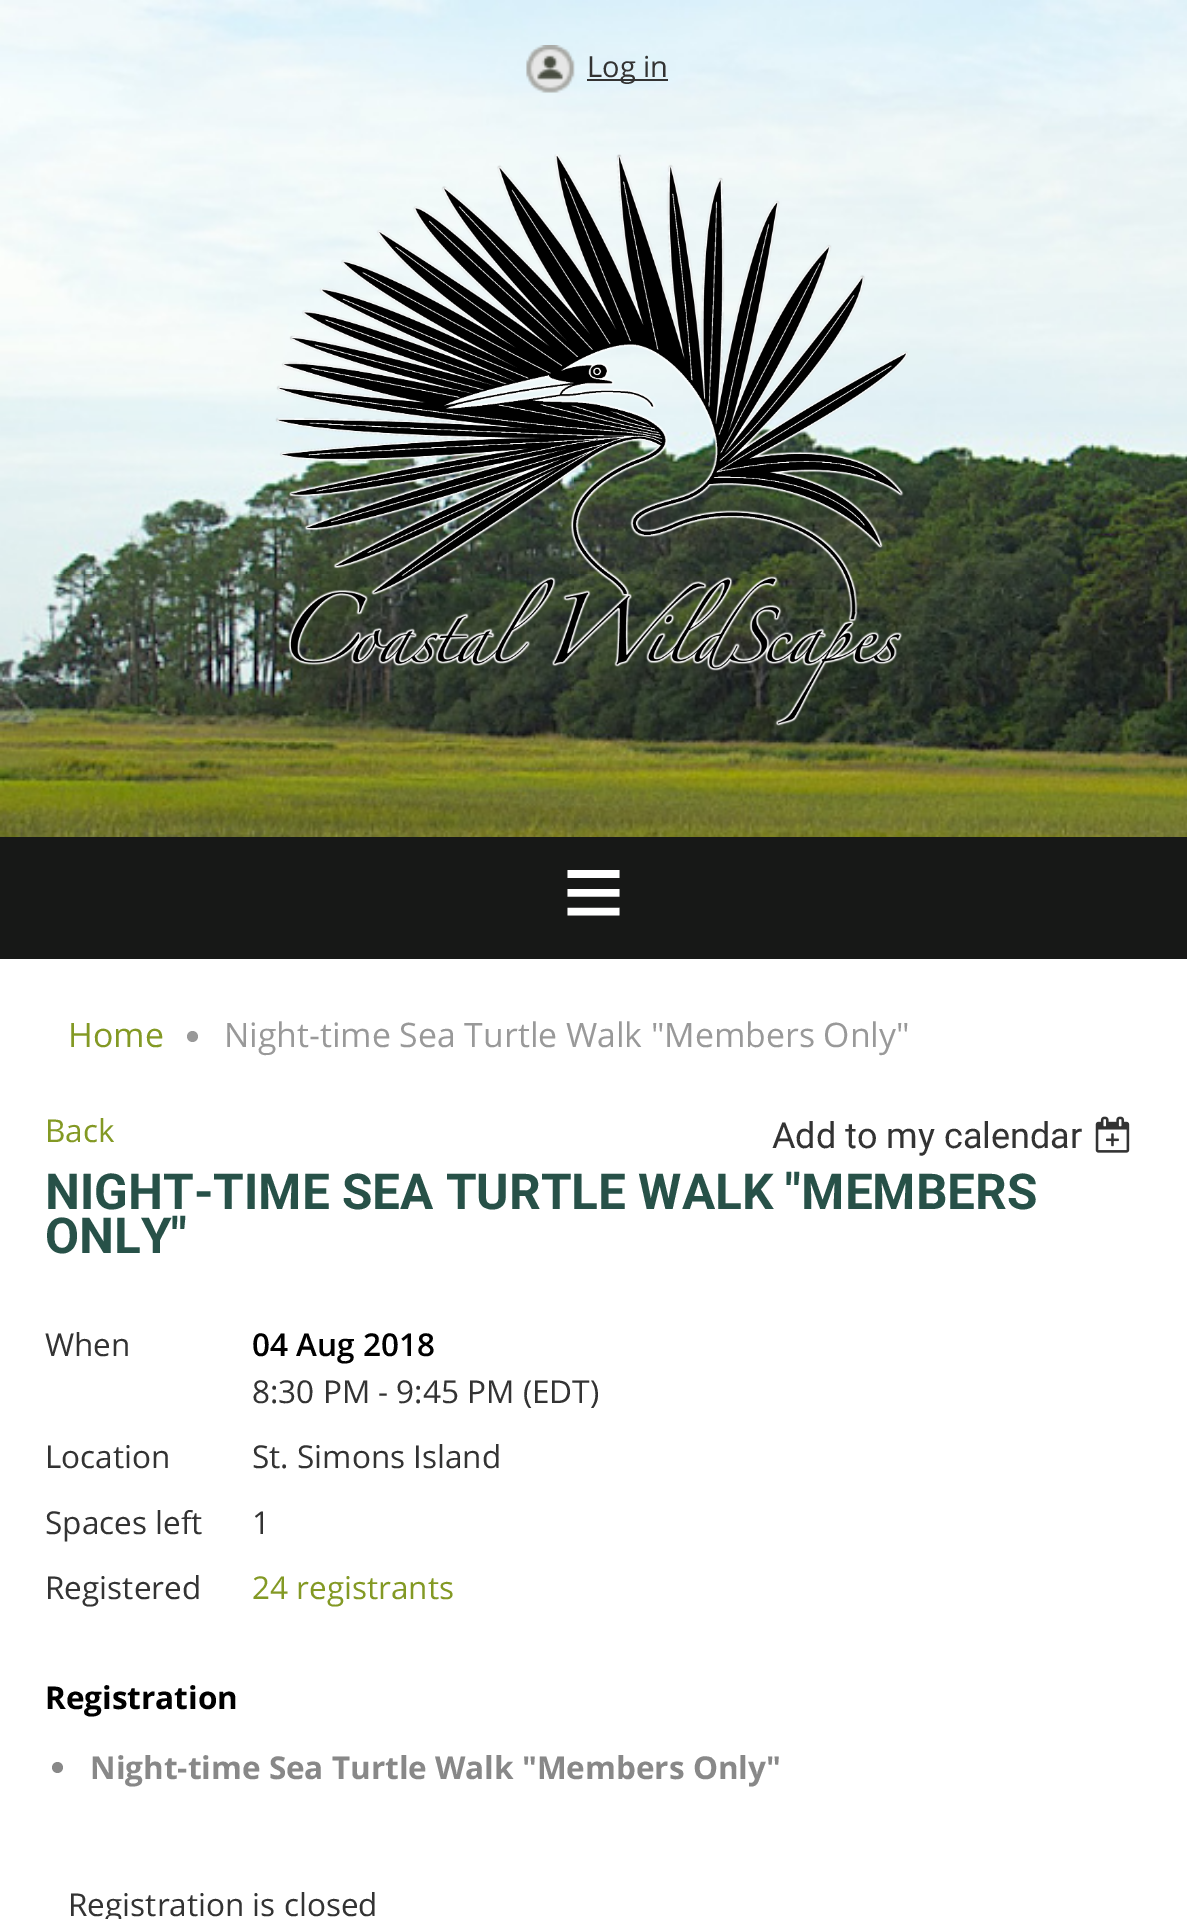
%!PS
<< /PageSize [1187 1919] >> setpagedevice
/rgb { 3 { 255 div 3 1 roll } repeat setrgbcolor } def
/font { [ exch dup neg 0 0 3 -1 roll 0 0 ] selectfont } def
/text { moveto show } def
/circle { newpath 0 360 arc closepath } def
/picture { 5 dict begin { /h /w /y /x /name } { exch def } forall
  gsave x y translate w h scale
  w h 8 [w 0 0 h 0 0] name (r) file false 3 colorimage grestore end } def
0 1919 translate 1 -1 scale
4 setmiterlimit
255 255 255 rgb
0 0 1187 1919 rectfill
(img_01.rgb) 0 0 1187 837 picture
(img_02.rgb) 526 45 49 48 picture
51 51 51 rgb
587 79 81 2 rectfill
(img_03.rgb) 275 154 633 572 picture
23 24 23 rgb
0 837 1187 122 rectfill
153 153 153 rgb
192.5 1036.5 5.5 circle fill
(img_04.rgb) 1095 1116 35 37 picture
136 136 136 rgb
57.5 1767.5 5.5 circle fill
/OpenSans-Regular 29 font
51 51 51 rgb
(Log in) 587 77 text
/LiberationSerif-Bold 112 font
255 255 255 rgb
(≡) 562 930 text
/OpenSans-Regular 33.75 font
131 153 36 rgb
(Home) 68 1047 text
153 153 153 rgb
(Night-time Sea Turtle Walk "Members Only") 224 1047 text
/OpenSans-Regular 31.5 font
131 153 36 rgb
(Back) 45 1142 text
/Roboto-Regular 36 font
51 51 51 rgb
(Add to my calendar) 772 1148 text
/Roboto-Bold 49.5 font
39 81 72 rgb
(NIGHT-TIME SEA TURTLE WALK "MEMBERS) 45 1209 text
(ONLY") 45 1253 text
/OpenSans-Regular 31.5 font
51 51 51 rgb
(When) 45 1356 text
/OpenSans-SemiBold 31.5 font
0 0 0 rgb
(04 Aug 2018) 252 1356 text
/OpenSans-Regular 31.5 font
51 51 51 rgb
(8:30 PM - 9:45 PM \(EDT\)) 252 1403 text
(Location) 45 1468 text
(St. Simons Island) 252 1468 text
(Spaces left) 45 1534 text
(1) 252 1534 text
(Registered) 45 1599 text
131 153 36 rgb
(24 registrants) 252 1599 text
/OpenSans-Bold 31.5 font
0 0 0 rgb
(Registration) 45 1709 text
136 136 136 rgb
(Night-time Sea Turtle Walk "Members Only") 90 1779 text
/OpenSans-Regular 31.5 font
51 51 51 rgb
(Registration is closed) 68 1916 text
showpage
